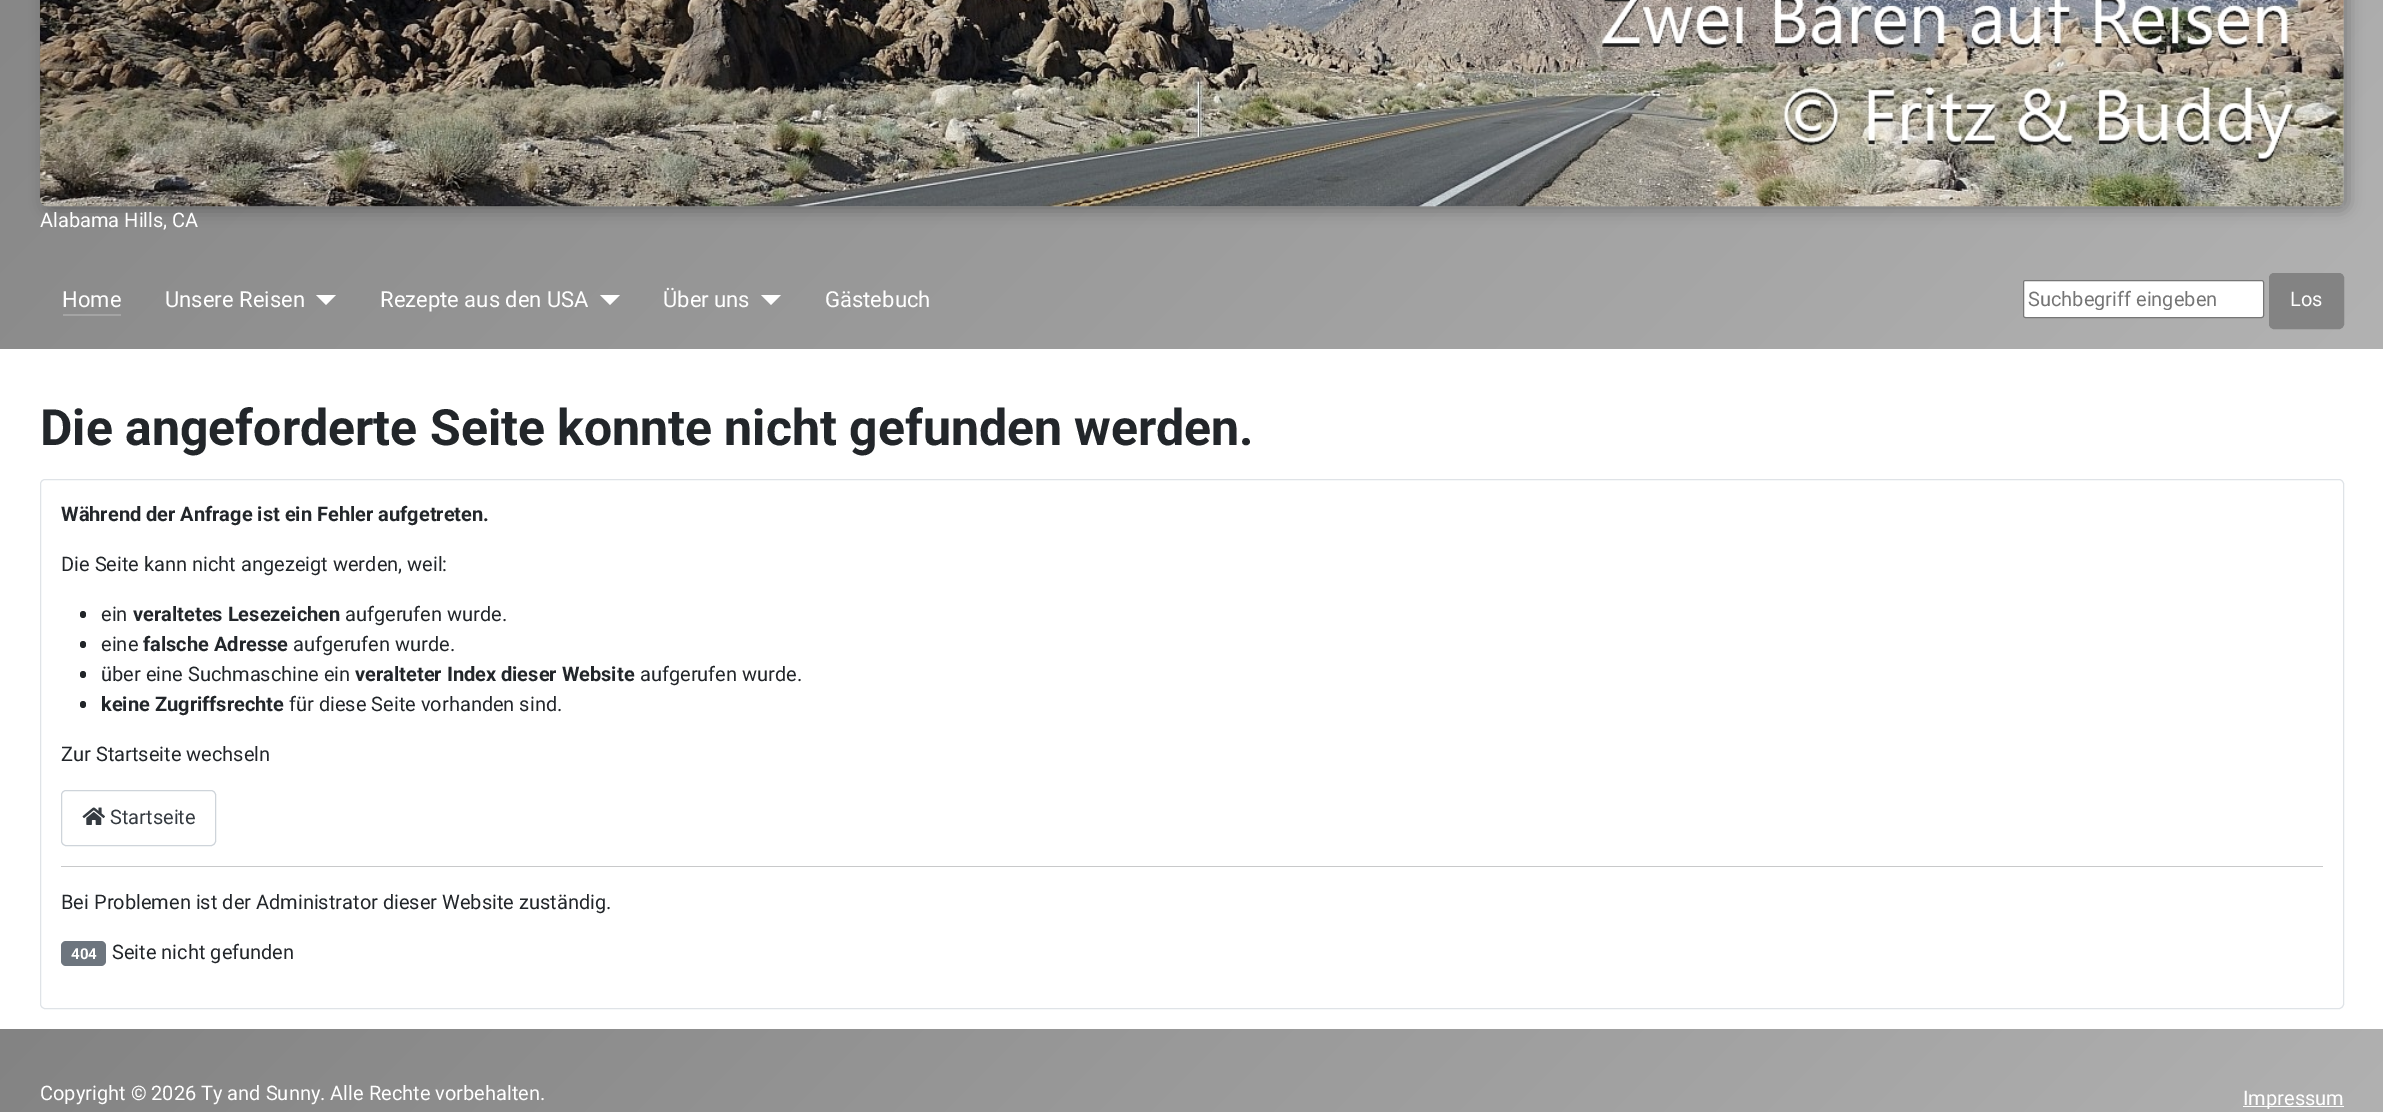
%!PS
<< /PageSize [2383 1112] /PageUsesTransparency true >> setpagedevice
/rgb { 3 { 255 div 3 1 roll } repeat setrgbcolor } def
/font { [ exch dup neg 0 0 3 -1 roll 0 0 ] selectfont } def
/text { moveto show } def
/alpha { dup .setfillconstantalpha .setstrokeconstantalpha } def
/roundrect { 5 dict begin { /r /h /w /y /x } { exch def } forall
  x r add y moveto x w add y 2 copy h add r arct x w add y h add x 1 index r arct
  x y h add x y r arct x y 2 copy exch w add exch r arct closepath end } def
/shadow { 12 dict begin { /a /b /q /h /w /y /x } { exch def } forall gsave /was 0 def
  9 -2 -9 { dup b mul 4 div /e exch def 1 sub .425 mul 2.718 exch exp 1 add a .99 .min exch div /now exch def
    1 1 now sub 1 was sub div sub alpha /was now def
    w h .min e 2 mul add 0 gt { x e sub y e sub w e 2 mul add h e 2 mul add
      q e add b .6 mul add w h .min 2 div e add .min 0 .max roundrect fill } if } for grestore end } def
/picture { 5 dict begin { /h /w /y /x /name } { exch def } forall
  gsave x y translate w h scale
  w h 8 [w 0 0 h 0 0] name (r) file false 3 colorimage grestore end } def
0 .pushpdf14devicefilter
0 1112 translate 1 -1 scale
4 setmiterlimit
255 255 255 rgb
0 0 2383 1112 rectfill
gsave 0 0 moveto 2383 0 rlineto 0 349 rlineto -2383 0 rlineto closepath clip newpath
<< /ShadingType 2 /ColorSpace /DeviceRGB /Coords [448 -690 1935 797] /Extend [true true] /Function << /FunctionType 2 /Domain [0 1] /C0 [0.514 0.514 0.514] /C1 [0.698 0.698 0.698] /N 1 >> >> shfill grestore
0 0 0 rgb
45 -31 2304 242 8 7.5 0.25 shadow
(img_01.rgb) 40 0 2304 207 picture
164 164 164 rgb
63 314 58 2 rectfill
255 255 255 rgb
316 295 moveto 20 0 rlineto -10 10 rlineto closepath fill
600 295 moveto 20 0 rlineto -10 10 rlineto closepath fill
761 295 moveto 20 0 rlineto -10 10 rlineto closepath fill
2023.5 280.5 240 37 2 roundrect gsave fill grestore
118 118 118 rgb
stroke
131 131 131 rgb
2269.5 273.5 74 55 4.5 roundrect gsave fill grestore
stroke
223 227 231 rgb
40.5 479.5 2303 529 4.5 roundrect stroke
34 38 42 rgb
80 611 6 7 3 roundrect fill
80 641 6 7 3 roundrect fill
80 671 6 7 3 roundrect fill
80 701 6 7 3 roundrect fill
206 212 218 rgb
61.5 790.5 154 55 4.5 roundrect stroke
(img_02.rgb) 82 807 23 18 picture
200 201 202 rgb
61 866 2262 1 rectfill
109 117 126 rgb
61 941 45 25 5 roundrect fill
gsave 0 1029 moveto 2383 0 rlineto 0 83 rlineto -2383 0 rlineto closepath clip newpath
<< /ShadingType 2 /ColorSpace /DeviceRGB /Coords [556 473 1828 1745] /Extend [true true] /Function << /FunctionType 2 /Domain [0 1] /C0 [0.514 0.514 0.514] /C1 [0.698 0.698 0.698] /N 1 >> >> shfill grestore
255 255 255 rgb
2243 1106 101 1 rectfill
/Roboto-Regular 20 font
(Alabama Hills, CA) 40 227 text
/Roboto-Regular 22 font
(Home) 62 307 text
(Unsere Reisen) 165 307 text
(Rezepte aus den USA) 380 307 text
(Über uns) 663 307 text
(Gästebuch) 825 307 text
gsave
2028 286 212 24 rectclip
/Roboto-Regular 20 font
117 117 117 rgb
(Suchbegriff eingeben) 2028 306 text
grestore
/Roboto-Regular 20 font
(Los) 2290 306 text
/Roboto-Bold 50 font
34 38 42 rgb
(Die angeforderte Seite konnte nicht gefunden werden.) 40 445 text
/Roboto-Bold 20 font
(Während der Anfrage ist ein Fehler aufgetreten.) 61 521 text
/Roboto-Regular 20 font
(Die Seite kann nicht angezeigt werden, weil:) 61 571 text
(ein) 101 621 text
/Roboto-Bold 20 font
(veraltetes Lesezeichen) 133 621 text
/Roboto-Regular 20 font
(aufgerufen wurde.) 345 621 text
(eine) 101 651 text
/Roboto-Bold 20 font
(falsche Adresse) 143 651 text
/Roboto-Regular 20 font
(aufgerufen wurde.) 293 651 text
(über eine Suchmaschine ein) 101 681 text
/Roboto-Bold 20 font
(veralteter Index dieser Website) 355 681 text
/Roboto-Regular 20 font
(aufgerufen wurde.) 640 681 text
/Roboto-Bold 20 font
(keine Zugriffsrechte) 101 711 text
/Roboto-Regular 20 font
(für diese Seite vorhanden sind.) 289 711 text
(Zur Startseite wechseln) 61 761 text
53 59 65 rgb
(Startseite) 110 824 text
34 38 42 rgb
(Bei Problemen ist der Administrator dieser Website zuständig.) 61 909 text
/Roboto-Bold 15 font
255 255 255 rgb
(404) 71 959 text
/Roboto-Regular 20 font
34 38 42 rgb
(Seite nicht gefunden) 112 959 text
255 255 255 rgb
(Copyright © 2026 Ty and Sunny. Alle Rechte vorbehalten.) 40 1100 text
(Impressum) 2243 1105 text
.poppdf14devicefilter showpage
